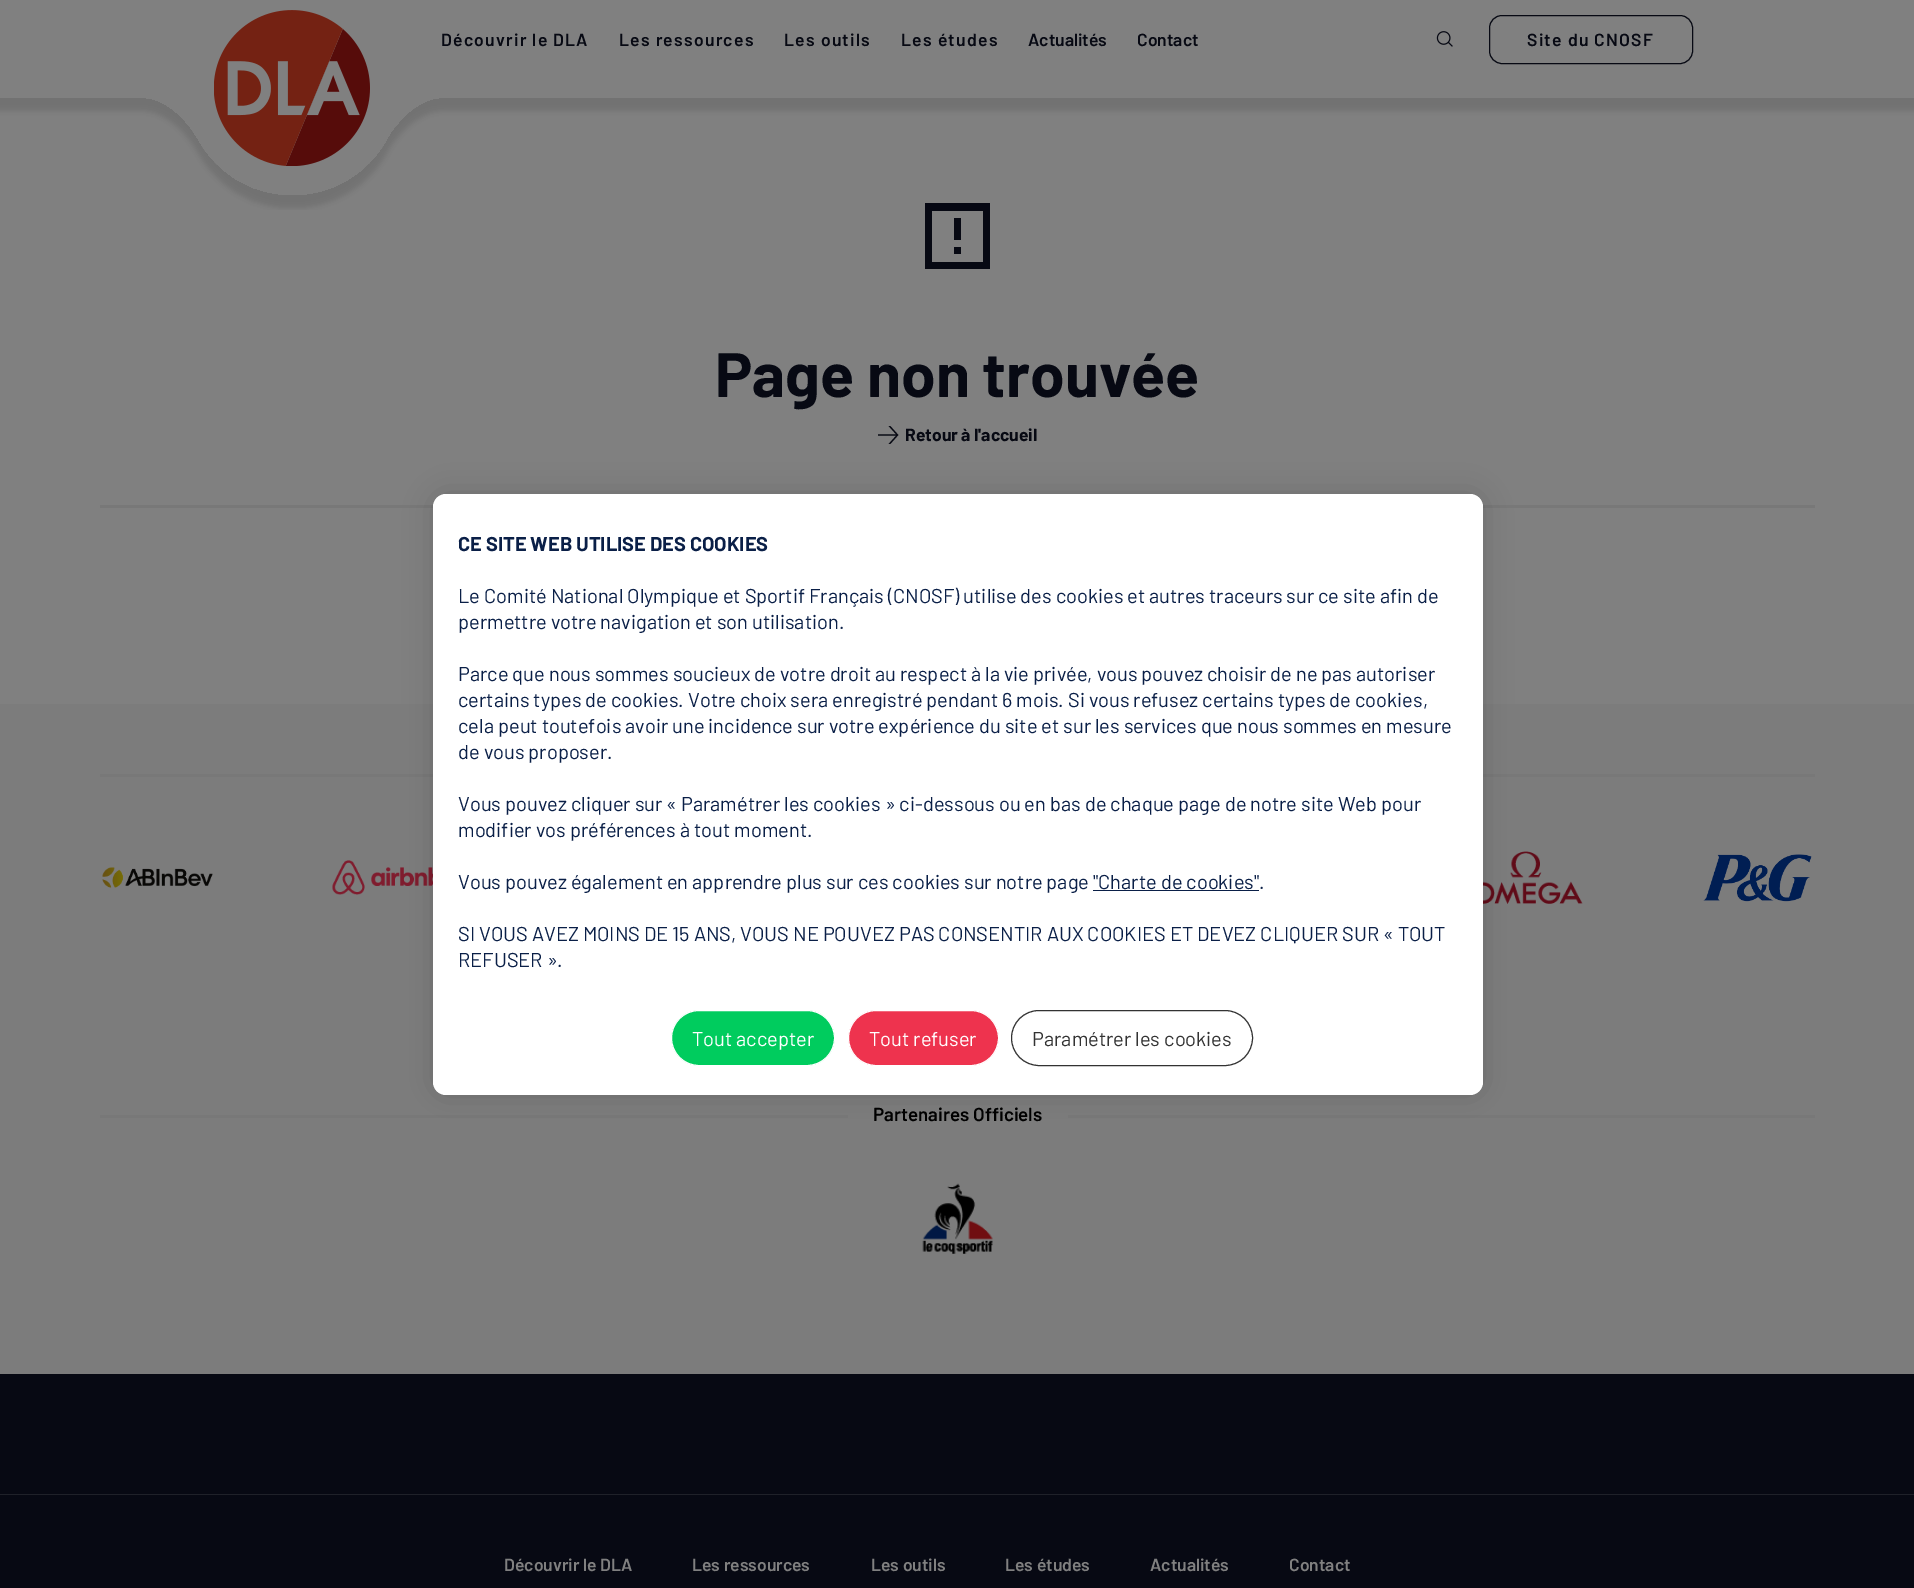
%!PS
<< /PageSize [1914 1588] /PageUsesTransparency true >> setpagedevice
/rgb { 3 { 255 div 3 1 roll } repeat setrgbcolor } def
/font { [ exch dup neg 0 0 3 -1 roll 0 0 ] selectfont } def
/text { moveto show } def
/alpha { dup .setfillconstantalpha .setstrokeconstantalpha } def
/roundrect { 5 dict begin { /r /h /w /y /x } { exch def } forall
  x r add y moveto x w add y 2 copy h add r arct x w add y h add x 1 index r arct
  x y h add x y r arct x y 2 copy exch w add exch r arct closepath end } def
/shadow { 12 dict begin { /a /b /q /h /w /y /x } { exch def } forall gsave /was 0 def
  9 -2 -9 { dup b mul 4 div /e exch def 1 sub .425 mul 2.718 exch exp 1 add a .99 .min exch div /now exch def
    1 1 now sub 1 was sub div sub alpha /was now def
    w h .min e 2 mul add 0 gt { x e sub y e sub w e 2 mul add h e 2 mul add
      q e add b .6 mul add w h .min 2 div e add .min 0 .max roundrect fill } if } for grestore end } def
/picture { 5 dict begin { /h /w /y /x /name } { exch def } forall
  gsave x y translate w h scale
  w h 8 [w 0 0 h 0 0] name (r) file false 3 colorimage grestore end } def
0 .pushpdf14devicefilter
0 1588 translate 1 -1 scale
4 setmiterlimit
128 128 128 rgb
0 0 1914 1588 rectfill
7 9 19 rgb
925 203 moveto 58 0 rlineto 0 8 rlineto -51 0 rlineto 0 51 rlineto 51 0 rlineto 0 7 rlineto -58 0 rlineto closepath 990 203 moveto -7 0 rlineto 0 66 rlineto 7 0 rlineto closepath 954 247 moveto 7 0 rlineto 0 7 rlineto -7 0 rlineto closepath 961 218 moveto -7 0 rlineto 0 22 rlineto 7 0 rlineto closepath fill
(img_03.rgb) 0 98 1914 112 picture
(img_01.rgb) 214 10 156 156 picture
(img_02.rgb) 1436 31 17 16 picture
1489.5 15.5 203 48 12.5 roundrect stroke
gsave
878 426 21 18 rectclip
1.2 setlinewidth
1 setlinecap
838.5 435 moveto 59 0 rlineto 889 425.5 moveto 8.5 9.5 rlineto -8.5 9.5 rlineto stroke
grestore
120 120 120 rgb
100 505 334 3 rectfill
1482 505 333 3 rectfill
124 124 124 rgb
0 704 1914 670 rectfill
120 120 120 rgb
100 774 333 3 rectfill
1483 774 332 3 rectfill
(img_04.rgb) 102 867 111 21 picture
(img_05.rgb) 332 860 101 35 picture
(img_06.rgb) 1483 851 100 53 picture
(img_07.rgb) 1703 854 109 48 picture
100 1115 748 3 rectfill
1068 1115 747 3 rectfill
(img_08.rgb) 922 1183 71 71 picture
7 9 19 rgb
0 1374 1914 214 rectfill
31 33 41 rgb
0 1494 1914 1 rectfill
0 0 0 rgb
433 494 1050 601 13 14 0.15 shadow
255 255 255 rgb
433 494 1050 601 13 roundrect fill
10 31 71 rgb
1093 890 166 1 rectfill
0 204 94 rgb
671.5 1010.5 163 55 27.5 roundrect gsave fill grestore
255 255 255 rgb
stroke
238 51 78 rgb
848.5 1010.5 150 55 27.5 roundrect gsave fill grestore
255 255 255 rgb
stroke
51 51 51 rgb
1011.5 1010.5 241 55 27.5 roundrect stroke
/Barlow-SemiBold 17.5 font
7 9 19 rgb
441 46 moveto 1.25 0 (Découvrir le DLA) ashow
619 46 moveto 1.25 0 (Les ressources) ashow
784 46 moveto 1.25 0 (Les outils) ashow
901 46 moveto 1.25 0 (Les études) ashow
(Actualités) 1028 46 text
(Contact) 1137 46 text
1527 46 moveto 1.25 0 (Site du CNOSF) ashow
/Barlow-Bold 62.5 font
(Page non trouvée) 715 397 text
/Barlow-Bold 17.5 font
(Retour à l'accueil) 905 441 text
/Barlow-SemiBold 18.75 font
0 0 0 rgb
(Partenaires Officiels) 873 1121 text
/Barlow-SemiBold 17.5 font
128 128 128 rgb
(Découvrir le DLA) 504 1571 text
(Les ressources) 692 1571 text
(Les outils) 871 1571 text
(Les études) 1005 1571 text
(Actualités) 1150 1571 text
(Contact) 1289 1571 text
/Barlow-Bold 20 font
10 31 71 rgb
(CE SITE WEB UTILISE DES COOKIES) 458 551 text
/Barlow-Regular 20 font
(Le Comité National Olympique et Sportif Français \(CNOSF\) utilise des cookies et autres traceurs sur ce site afin de) 458 603 text
(permettre votre navigation et son utilisation.) 458 629 text
(Parce que nous sommes soucieux de votre droit au respect à la vie privée, vous pouvez choisir de ne pas autoriser) 458 681 text
(certains types de cookies. Votre choix sera enregistré pendant 6 mois. Si vous refusez certains types de cookies,) 458 707 text
(cela peut toutefois avoir une incidence sur votre expérience du site et sur les services que nous sommes en mesure) 458 733 text
(de vous proposer.) 458 759 text
(Vous pouvez cliquer sur « Paramétrer les cookies » ci-dessous ou en bas de chaque page de notre site Web pour) 458 811 text
(modifier vos préférences à tout moment.) 458 837 text
(Vous pouvez également en apprendre plus sur ces cookies sur notre page "Charte de cookies".) 458 889 text
(SI VOUS AVEZ MOINS DE 15 ANS, VOUS NE POUVEZ PAS CONSENTIR AUX COOKIES ET DEVEZ CLIQUER SUR « TOUT) 458 941 text
(REFUSER ».) 458 967 text
255 255 255 rgb
(Tout accepter) 692 1046 text
(Tout refuser) 869 1046 text
51 51 51 rgb
(Paramétrer les cookies) 1032 1046 text
.poppdf14devicefilter showpage
